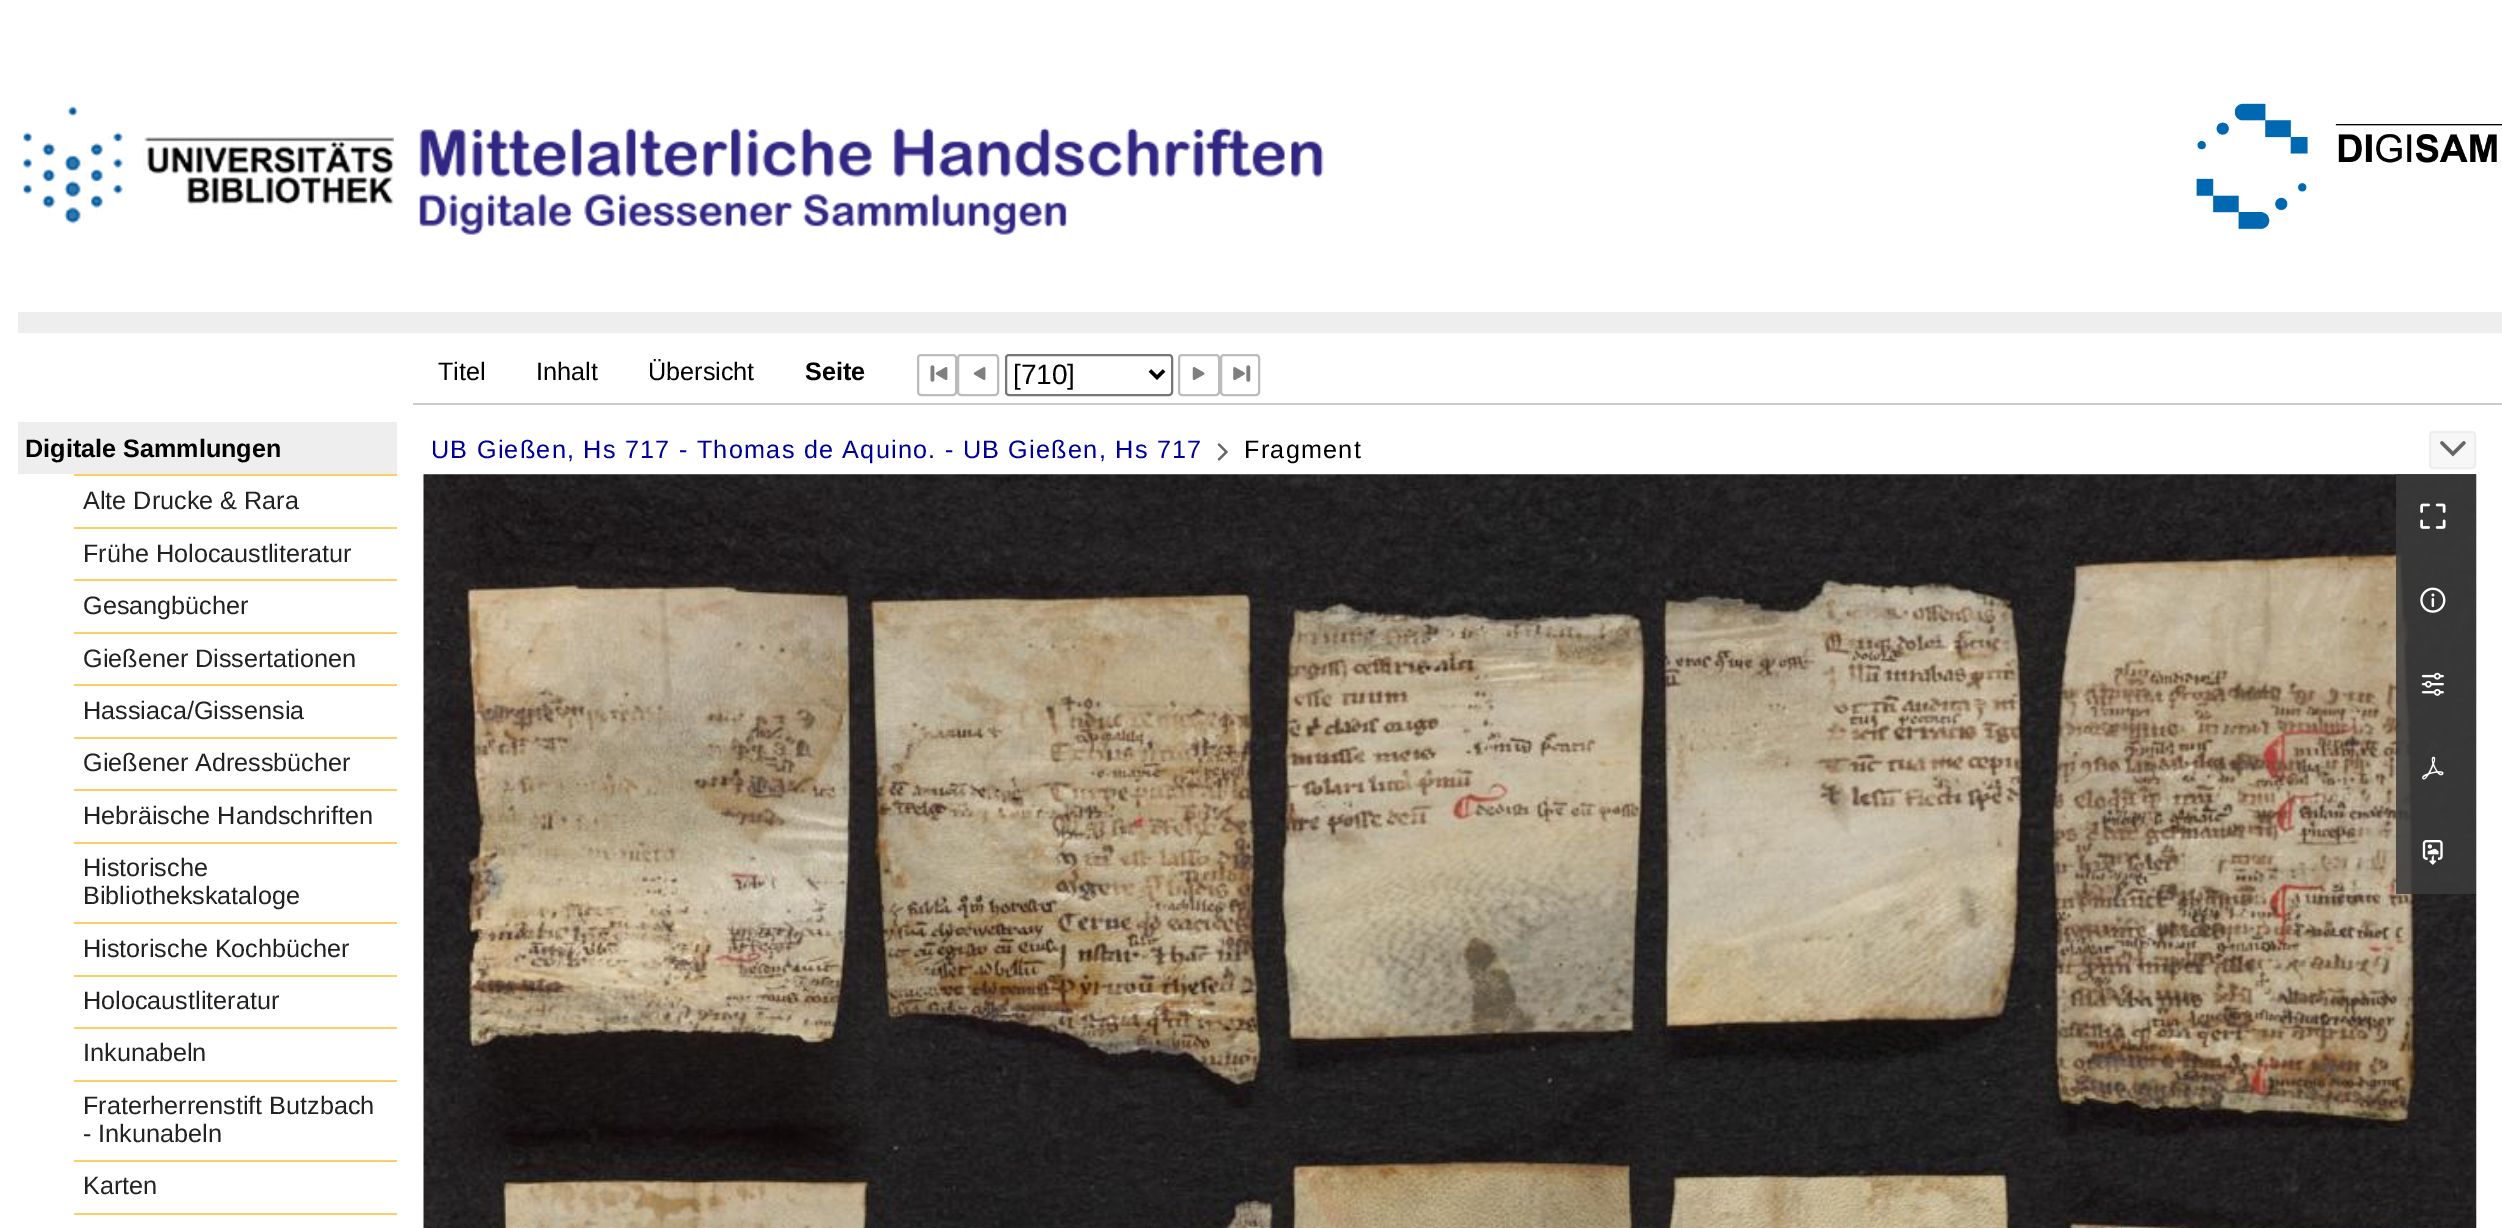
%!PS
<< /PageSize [2502 1228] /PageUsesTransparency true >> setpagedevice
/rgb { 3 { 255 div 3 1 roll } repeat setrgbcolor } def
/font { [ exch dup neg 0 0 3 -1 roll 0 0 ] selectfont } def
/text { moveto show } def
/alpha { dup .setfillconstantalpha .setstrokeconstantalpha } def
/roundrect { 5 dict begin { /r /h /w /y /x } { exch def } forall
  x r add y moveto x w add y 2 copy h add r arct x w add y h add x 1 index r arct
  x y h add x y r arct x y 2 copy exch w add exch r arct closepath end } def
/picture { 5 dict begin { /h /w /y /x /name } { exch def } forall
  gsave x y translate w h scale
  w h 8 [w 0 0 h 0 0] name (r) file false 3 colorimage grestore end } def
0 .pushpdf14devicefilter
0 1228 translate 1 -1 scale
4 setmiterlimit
255 255 255 rgb
0 0 2502 1228 rectfill
238 238 238 rgb
18 312 2484 21 rectfill
(img_01.rgb) 22 106 372 120 picture
(img_02.rgb) 419 127 905 108 picture
(img_03.rgb) 2196 103 306 127 picture
204 204 204 rgb
413 403 2089 2 rectfill
187 187 187 rgb
2 setlinewidth
918 355 38 40 3 roundrect stroke
(img_04.rgb) 930 365 18 17 picture
958 355 40 40 3 roundrect stroke
(img_05.rgb) 973 367 13 13 picture
118 118 118 rgb
1006 355 166 40 3 roundrect stroke
0 0 0 rgb
3.5 setlinewidth
1150 370.5 moveto 7 7 rlineto 7 -7 rlineto stroke
187 187 187 rgb
2 setlinewidth
1179 355 40 40 3 roundrect stroke
(img_06.rgb) 1192 367 13 13 picture
1221 355 38 40 3 roundrect stroke
(img_07.rgb) 1233 365 18 17 picture
238 238 238 rgb
18 422 379 52 rectfill
255 204 102 rgb
74 474 323 2 rectfill
74 527 323 2 rectfill
74 579 323 2 rectfill
74 632 323 2 rectfill
74 684 323 2 rectfill
74 737 323 2 rectfill
74 789 323 2 rectfill
74 842 323 2 rectfill
74 922 323 2 rectfill
74 975 323 2 rectfill
74 1027 323 2 rectfill
74 1080 323 2 rectfill
74 1160 323 2 rectfill
74 1213 323 2 rectfill
(img_08.rgb) 1217 443 11 18 picture
247 247 248 rgb
2430 432 45 36 3 roundrect gsave fill grestore
238 238 238 rgb
stroke
(img_09.rgb) 2440 441 26 16 picture
(img_10.rgb) 423 474 2054 754 picture
0.85 alpha
59 59 59 rgb
2396 474 80 420 rectfill
1 alpha
(img_11.rgb) 2420 503 26 26 picture
(img_12.rgb) 2420 587 26 26 picture
(img_13.rgb) 2421 672 23 24 picture
(img_14.rgb) 2422 756 22 24 picture
(img_15.rgb) 2422 840 21 25 picture
/LiberationSans-Regular 25.2 font
0 0 0 rgb
(Titel) 438 380 text
(Inhalt) 536 380 text
(Übersicht) 648 380 text
/LiberationSans-Bold 25.2 font
(Seite) 805 380 text
/LiberationSans-Regular 28 font
([710]) 1013 384 text
/LiberationSans-Bold 25.2 font
(Digitale Sammlungen) 25 457 text
/LiberationSans-Regular 25.2 font
34 34 34 rgb
(Alte Drucke & Rara) 83 509 text
(Frühe Holocaustliteratur) 83 562 text
(Gesangbücher) 83 614 text
(Gießener Dissertationen) 83 667 text
(Hassiaca/Gissensia) 83 719 text
(Gießener Adressbücher) 83 771 text
(Hebräische Handschriften) 83 824 text
(Historische) 83 876 text
(Bibliothekskataloge) 83 904 text
(Historische Kochbücher) 83 957 text
(Holocaustliteratur) 83 1009 text
(Inkunabeln) 83 1061 text
(Fraterherrenstift Butzbach) 83 1114 text
(- Inkunabeln) 83 1142 text
(Karten) 83 1194 text
0 0 153 rgb
431 458 moveto 1.25 0 (UB Gießen, Hs 717 - Thomas de Aquino. - UB Gießen, Hs 717) ashow
0 0 0 rgb
1244 458 moveto 1.25 0 (Fragment) ashow
.poppdf14devicefilter showpage
